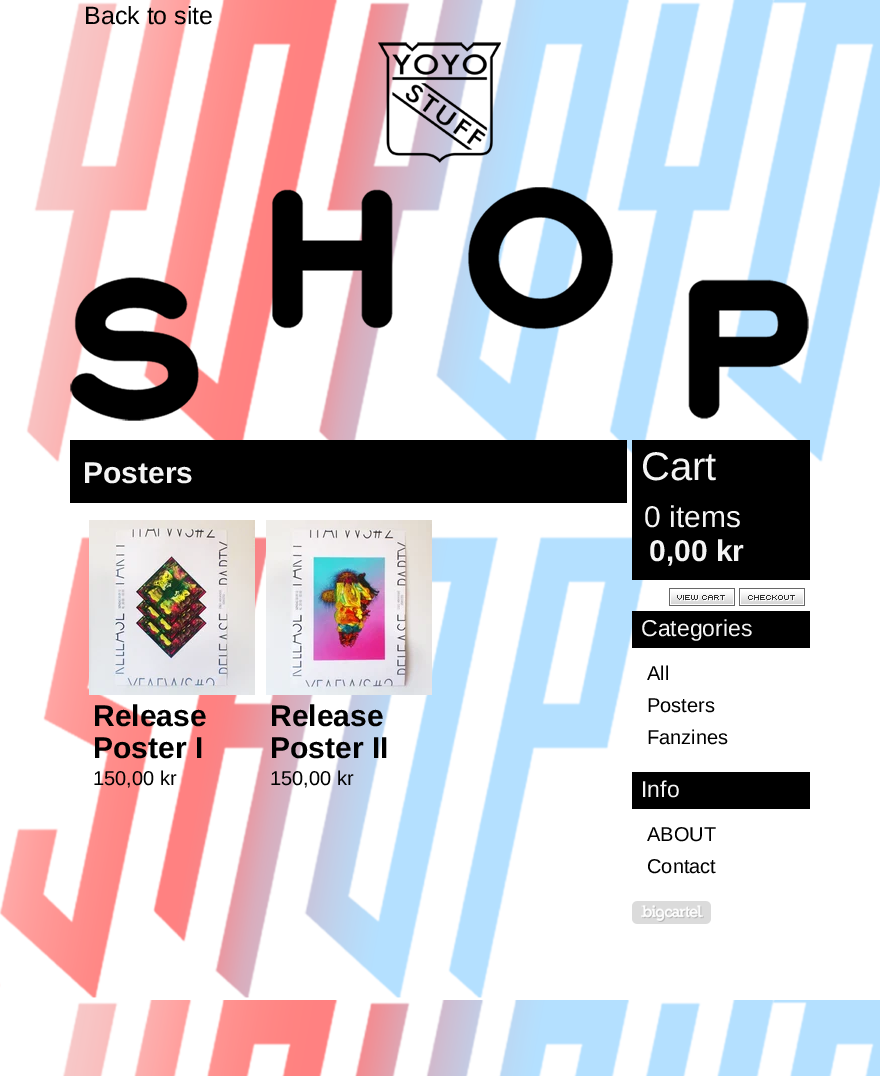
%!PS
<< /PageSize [880 1076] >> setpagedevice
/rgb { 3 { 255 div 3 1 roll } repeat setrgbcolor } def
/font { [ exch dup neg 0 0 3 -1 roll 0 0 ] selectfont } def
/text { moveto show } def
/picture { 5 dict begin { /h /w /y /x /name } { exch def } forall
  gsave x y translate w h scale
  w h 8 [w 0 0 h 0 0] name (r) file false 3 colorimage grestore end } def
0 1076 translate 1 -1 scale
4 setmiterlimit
255 255 255 rgb
0 0 880 1076 rectfill
(img_01.rgb) 0 0 880 1076 picture
(img_02.rgb) 70 42 739 379 picture
0 0 0 rgb
70 440 557 63 rectfill
(img_03.rgb) 89 520 166 175 picture
(img_04.rgb) 266 520 166 175 picture
632 440 178 140 rectfill
(img_05.rgb) 669 588 66 18 picture
(img_06.rgb) 739 588 66 18 picture
632 611 178 37 rectfill
632 772 178 37 rectfill
(img_07.rgb) 632 901 79 23 picture
/LiberationSans-Regular 25 font
(Back to site) 84 24 text
/LiberationSans-Bold 30 font
245 245 245 rgb
(Posters) 83 483 text
0 0 0 rgb
(Release) 93 726 text
(Poster I) 93 758 text
/LiberationSans-Regular 20 font
(150,00 kr) 93 785 text
/LiberationSans-Bold 30 font
(Release) 270 726 text
(Poster II) 270 758 text
/LiberationSans-Regular 20 font
(150,00 kr) 270 785 text
/LiberationSans-Regular 40 font
245 245 245 rgb
(Cart) 641 480 text
/LiberationSans-Regular 30 font
(0 items) 644 527 text
/LiberationSans-Bold 30 font
(0,00 kr) 649 561 text
/LiberationSans-Regular 23 font
(Categories) 641 636 text
/LiberationSans-Regular 20 font
0 0 0 rgb
(All) 647 680 text
(Posters) 647 712 text
(Fanzines) 647 744 text
/LiberationSans-Regular 23 font
245 245 245 rgb
(Info) 641 797 text
/LiberationSans-Regular 20 font
0 0 0 rgb
(ABOUT) 647 841 text
(Contact) 647 873 text
showpage
